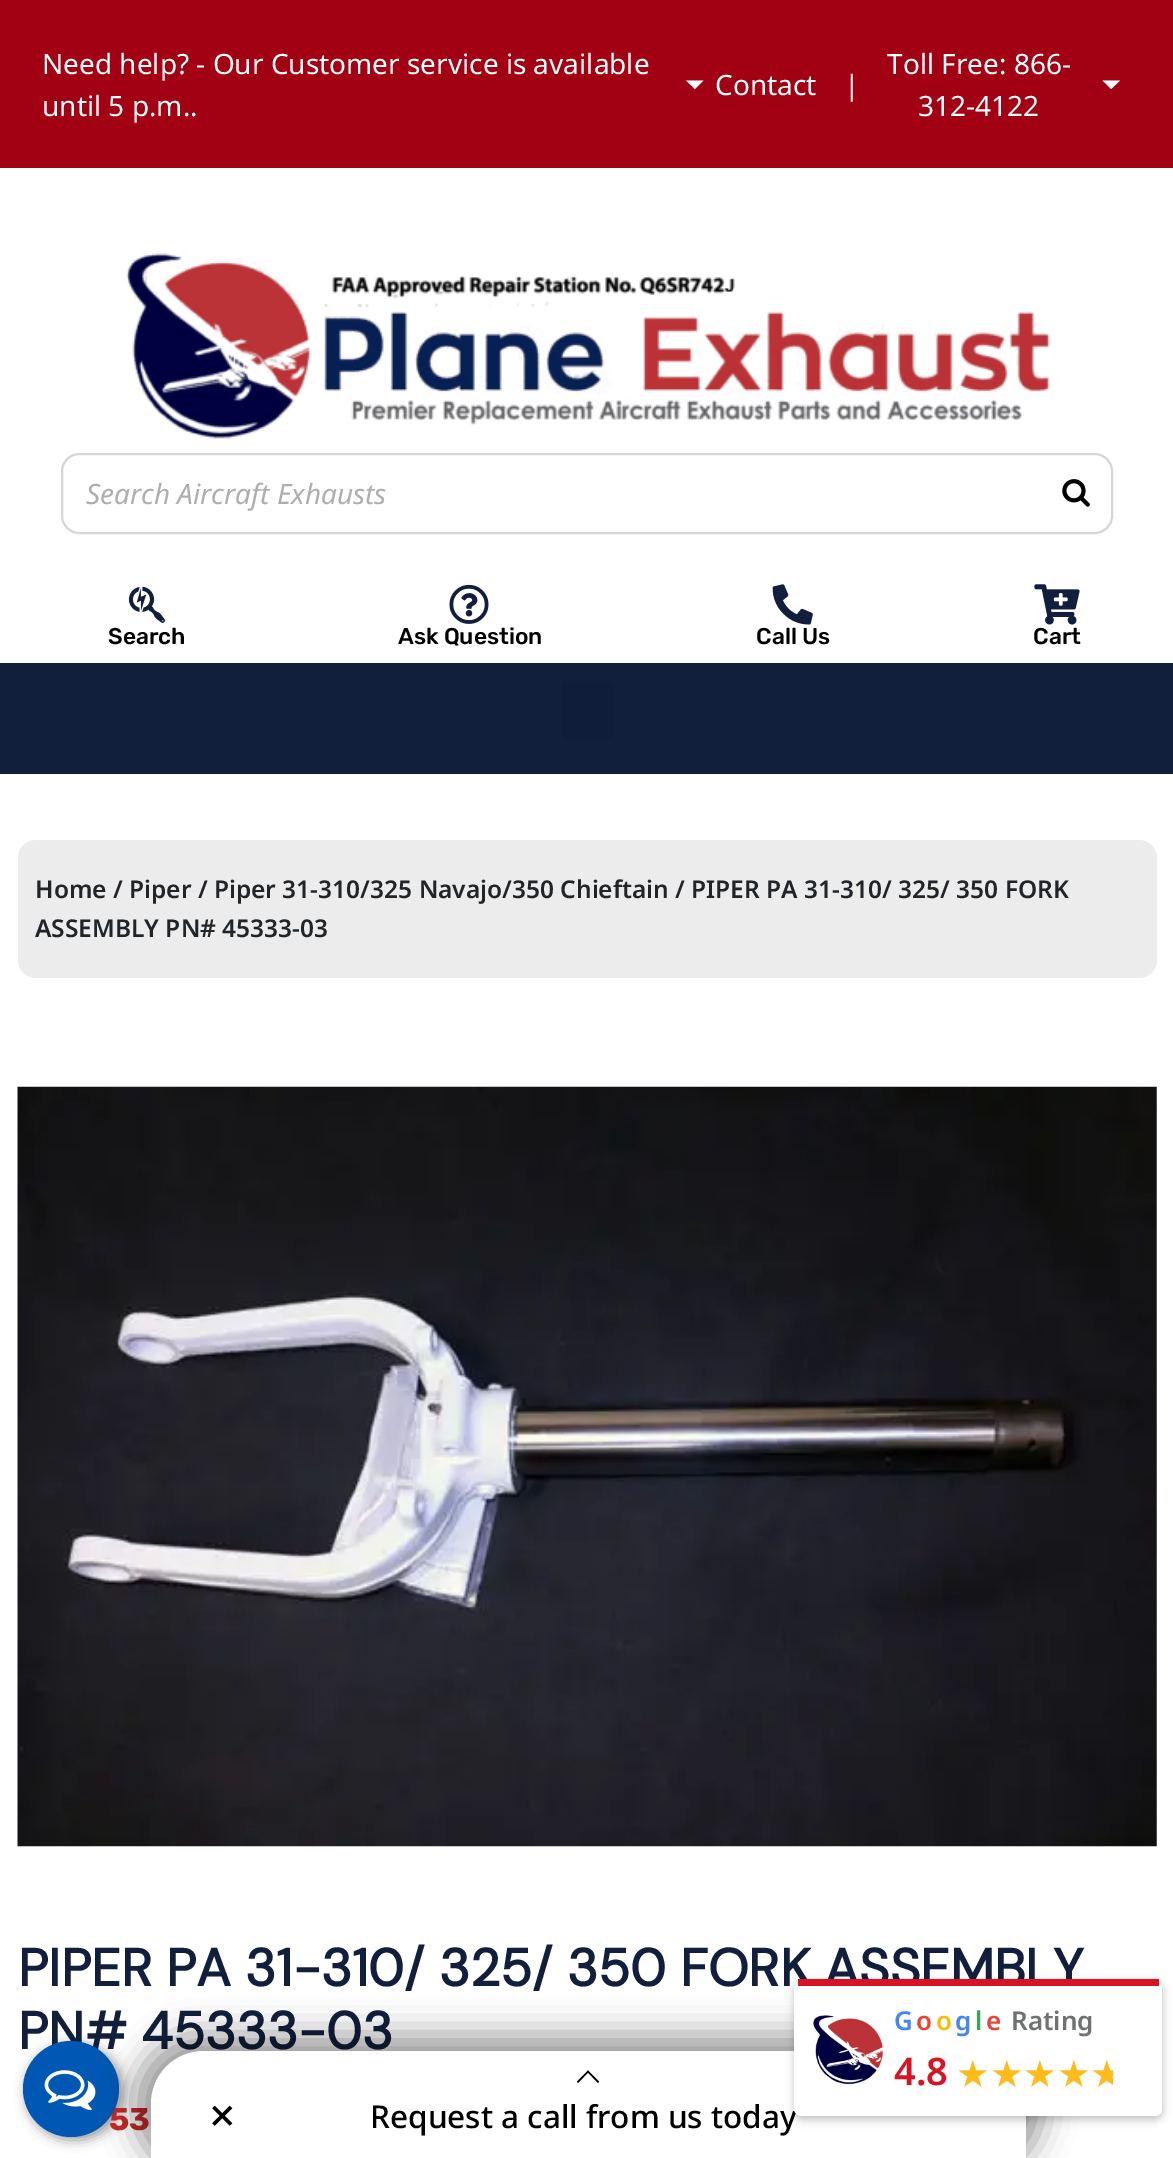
%!PS
<< /PageSize [1173 2158] /PageUsesTransparency true >> setpagedevice
/rgb { 3 { 255 div 3 1 roll } repeat setrgbcolor } def
/font { [ exch dup neg 0 0 3 -1 roll 0 0 ] selectfont } def
/text { moveto show } def
/alpha { dup .setfillconstantalpha .setstrokeconstantalpha } def
/circle { newpath 0 360 arc closepath } def
/roundrect { 5 dict begin { /r /h /w /y /x } { exch def } forall
  x r add y moveto x w add y 2 copy h add r arct x w add y h add x 1 index r arct
  x y h add x y r arct x y 2 copy exch w add exch r arct closepath end } def
/shadow { 12 dict begin { /a /b /q /h /w /y /x } { exch def } forall gsave /was 0 def
  9 -2 -9 { dup b mul 4 div /e exch def 1 sub .425 mul 2.718 exch exp 1 add a .99 .min exch div /now exch def
    1 1 now sub 1 was sub div sub alpha /was now def
    w h .min e 2 mul add 0 gt { x e sub y e sub w e 2 mul add h e 2 mul add
      q e add b .6 mul add w h .min 2 div e add .min 0 .max roundrect fill } if } for grestore end } def
/picture { 5 dict begin { /h /w /y /x /name } { exch def } forall
  gsave x y translate w h scale
  w h 8 [w 0 0 h 0 0] name (r) file false 3 colorimage grestore end } def
0 .pushpdf14devicefilter
0 2158 translate 1 -1 scale
4 setmiterlimit
255 255 255 rgb
0 0 1173 2158 rectfill
162 0 19 rgb
0 0 1173 168 rectfill
255 255 255 rgb
686 80.5 moveto 17.5 0 rlineto -8.5 8.5 rlineto closepath fill
1102.5 80.5 moveto 17.5 0 rlineto -9 8.5 rlineto closepath fill
(img_01.rgb) 122 250 928 189 picture
214 214 214 rgb
2 setlinewidth
62 454 1050 79 17 roundrect stroke
(img_02.rgb) 1062 479 28 28 picture
(img_03.rgb) 128 586 38 37 picture
(img_04.rgb) 449 584 40 40 picture
(img_05.rgb) 772 584 41 41 picture
(img_06.rgb) 1034 584 46 41 picture
17 31 61 rgb
0 663 1173 111 rectfill
16 29 58 rgb
562 681 51 58 5 roundrect fill
236 236 236 rgb
18 840 1139 138 18 roundrect fill
(img_07.rgb) 17 1086 1140 761 picture
0 0 0 rgb
26 2044 97 96 48 6 0.4 shadow
/NotoSans-Regular 28 font
255 255 255 rgb
(Need help? - Our Customer service is available) 42 74 text
(until 5 p.m..) 42 116 text
(Contact) 715 95 text
(|) 844 95 text
(Toll Free: 866-) 887 74 text
(312-4122) 918 116 text
/NotoSans-Italic 28 font
174 174 174 rgb
(Search Aircraft Exhausts) 86 504 text
/Rubik-Medium 22.75 font
0 0 0 rgb
(Search) 108 644 text
(Ask Question) 398 644 text
(Call Us) 756 644 text
(Cart) 1033 644 text
/NotoSans-SemiBold 24.5 font
33 37 41 rgb
(Home / Piper / Piper 31-310/325 Navajo/350 Chieftain / PIPER PA 31-310/ 325/ 350 FORK) 35 898 text
(ASSEMBLY PN# 45333-03) 35 937 text
/DMSans-Bold 52.5 font
17 31 61 rgb
(PIPER PA 31-310/ 325/ 350 FORK ASSEMBLY) 18 1986 text
(PN# 45333-03) 18 2049 text
/Rubik-Bold 31.5 font
200 41 41 rgb
(53) 109 2130 text
0 88 180 rgb
71 2089 48 circle fill
(img_08.rgb) 44 2070 52 41 picture
0 0 0 rgb
133 2034 910 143 70 16.5 0.39 shadow
255 255 255 rgb
204 2051 moveto 769 0 rlineto 29.5 0 53 23.5 53 53 rcurveto 0 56 rlineto -875 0 rlineto 0 -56 rlineto 0 -29.5 23.5 -53 53 -53 rcurveto closepath fill
0 0 0 rgb
3.5 setlinewidth
213.5 2107 moveto 17.5 17.5 rlineto 231 2107 moveto -17.5 17.5 rlineto stroke
578 2083 moveto -1 -1.5 rlineto 11 -11 rlineto 1 1 rlineto closepath fill
598 2083 moveto -11 -11.5 rlineto 1 -1 rlineto 11 11 rlineto closepath fill
/NotoSans-Medium 31.5 font
(Request a call from us today) 370 2128 text
gsave
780 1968 moveto 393 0 rlineto 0 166 rlineto -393 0 rlineto closepath 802 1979 moveto 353 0 rlineto 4 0 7 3 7 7 rcurveto 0 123 rlineto 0 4 -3 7 -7 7 rcurveto -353 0 rlineto -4 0 -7 -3 -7 -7 rcurveto 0 -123 rlineto 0 -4 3 -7 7 -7 rcurveto closepath eoclip newpath
795 1983 367 136 7 4.5 0.26 shadow
grestore
255 255 255 rgb
802 1986 moveto 360 0 rlineto 0 123 rlineto 0 4 -3 7 -7 7 rcurveto -353 0 rlineto -4 0 -8 -3 -8 -7 rcurveto 0 -123 rlineto closepath fill
216 19 36 rgb
798 1979 361 7 rectfill
(img_09.rgb) 813 2015 70 70 picture
/NotoSans-SemiBold 26 font
66 133 244 rgb
894 2030 moveto -4 0 (G) ashow
234 67 53 rgb
916 2030 moveto -4 0 (o) ashow
251 188 5 rgb
936 2030 moveto -4 0 (o) ashow
66 133 244 rgb
955 2030 moveto -4 0 (g) ashow
52 168 83 rgb
975 2030 moveto -4 0 (l) ashow
234 67 53 rgb
986 2030 moveto -4 0 (e) ashow
112 113 113 rgb
(Rating) 1011 2030 text
/NotoSans-SemiBold 38 font
216 19 36 rgb
(4.8) 894 2085 text
gsave
956 2044 157 56 rectclip
/DejaVuSans-Regular 37.5 font
255 187 28 rgb
(★★★★★) 956 2087 text
grestore
.poppdf14devicefilter showpage
